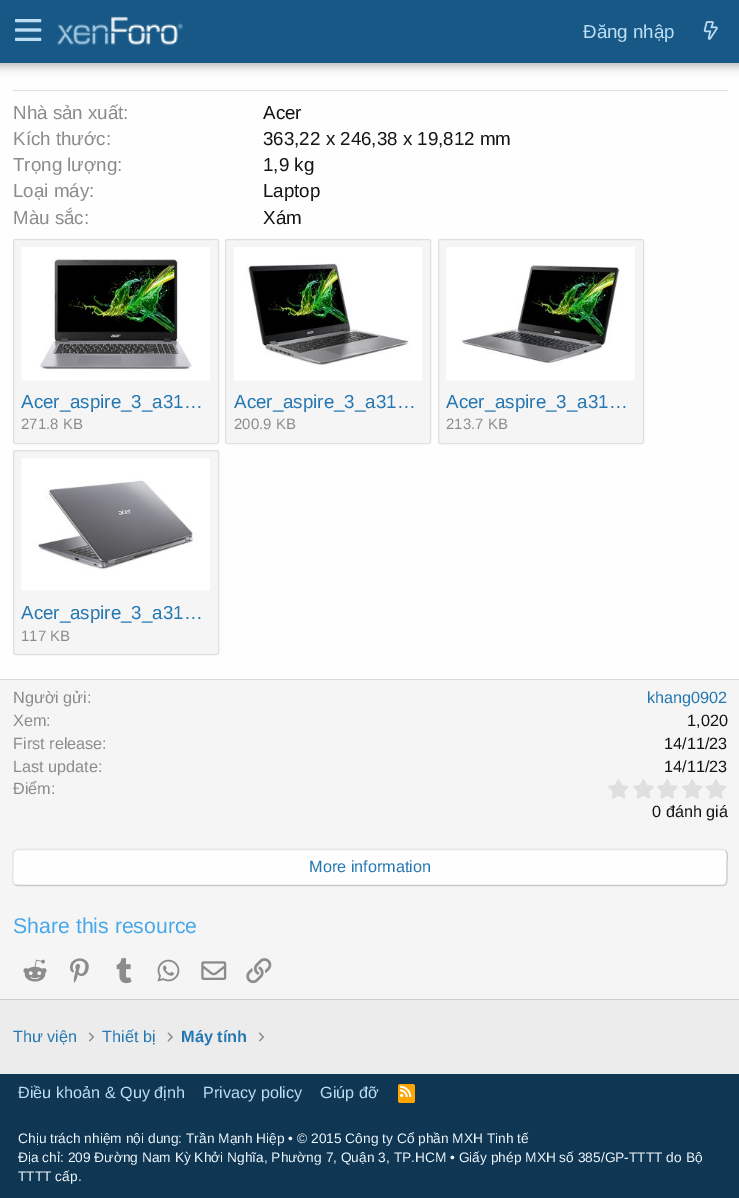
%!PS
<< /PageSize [739 1198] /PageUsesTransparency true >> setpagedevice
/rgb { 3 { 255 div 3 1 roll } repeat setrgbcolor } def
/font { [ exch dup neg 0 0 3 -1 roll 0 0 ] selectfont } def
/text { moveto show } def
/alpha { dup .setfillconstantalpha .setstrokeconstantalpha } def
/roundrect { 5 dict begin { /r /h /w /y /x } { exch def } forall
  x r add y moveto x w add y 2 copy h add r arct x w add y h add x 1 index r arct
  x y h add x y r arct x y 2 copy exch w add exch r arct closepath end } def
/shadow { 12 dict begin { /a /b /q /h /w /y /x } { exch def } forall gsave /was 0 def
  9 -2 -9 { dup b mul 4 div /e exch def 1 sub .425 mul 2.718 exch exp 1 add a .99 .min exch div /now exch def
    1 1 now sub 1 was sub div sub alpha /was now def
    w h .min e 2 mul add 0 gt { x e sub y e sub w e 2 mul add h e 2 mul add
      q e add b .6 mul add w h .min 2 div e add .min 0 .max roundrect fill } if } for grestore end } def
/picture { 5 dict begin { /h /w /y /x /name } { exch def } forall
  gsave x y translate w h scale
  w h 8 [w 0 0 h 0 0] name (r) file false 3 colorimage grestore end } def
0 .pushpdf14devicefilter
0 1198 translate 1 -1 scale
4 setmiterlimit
236 236 236 rgb
0 0 739 1198 rectfill
254 254 254 rgb
0 63 739 616 rectfill
0 0 0 rgb
-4 -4 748 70 0 5 0.3 shadow
24 88 134 rgb
0 0 739 63 rectfill
(img_01.rgb) 15 19 27 22 picture
(img_02.rgb) 57 16 126 29 picture
(img_03.rgb) 703 21 15 19 picture
203 203 203 rgb
0 999 739 1 rectfill
223 223 223 rgb
13 90 715 1 rectfill
245 245 245 rgb
13.5 239.5 205 204 2 roundrect gsave fill grestore
223 223 223 rgb
stroke
(img_04.rgb) 21 247 189 134 picture
245 245 245 rgb
225.5 239.5 205 204 2 roundrect gsave fill grestore
223 223 223 rgb
stroke
(img_05.rgb) 234 247 188 134 picture
245 245 245 rgb
438.5 239.5 205 204 2 roundrect gsave fill grestore
223 223 223 rgb
stroke
(img_06.rgb) 446 247 189 134 picture
245 245 245 rgb
13.5 450.5 205 204 2 roundrect gsave fill grestore
223 223 223 rgb
stroke
(img_07.rgb) 21 458 189 133 picture
245 245 245 rgb
0 680 739 319 rectfill
216 216 216 rgb
0 679 739 1 rectfill
(img_08.rgb) 608 779 21 20 picture
(img_08.rgb) 633 779 21 20 picture
(img_09.rgb) 657 779 21 20 picture
(img_09.rgb) 682 779 21 20 picture
(img_10.rgb) 706 779 20 20 picture
254 254 254 rgb
13 849 715 37 5 roundrect fill
203 203 203 rgb
1.2 setlinewidth
725.5 850.5 moveto 3 3 1.5 9.5 1.5 12.5 rcurveto 0 13.5 rlineto 0 3.5 0.5 9 -4.5 9 rcurveto -705 0 rlineto -3 -1 rlineto stroke
229 229 229 rgb
14.5 884.5 moveto -3 -3 -1.5 -9.5 -1.5 -12.5 rcurveto 0 -13.5 rlineto 0 -3.5 -0.5 -9 4.5 -9 rcurveto 705 0 rlineto 3 1 rlineto stroke
(img_11.rgb) 23 959 24 23 picture
(img_12.rgb) 70 958 19 25 picture
(img_13.rgb) 116 958 16 26 picture
(img_14.rgb) 157 959 23 23 picture
(img_15.rgb) 201 961 26 19 picture
(img_16.rgb) 246 958 26 26 picture
(img_17.rgb) 88 1032 7 10 picture
(img_18.rgb) 167 1032 6 10 picture
(img_17.rgb) 258 1032 7 10 picture
15 54 82 rgb
0 1074 739 124 rectfill
255 165 0 rgb
398 1084 17 19 2.5 roundrect fill
(img_19.rgb) 400 1085 12 13 picture
/LiberationSans-Regular 18.75 font
188 222 245 rgb
(Đăng nhập) 583 38 text
140 140 140 rgb
(Nhà sản xuất:) 13 119 text
20 20 20 rgb
(Acer) 263 119 text
140 140 140 rgb
(Kích thước:) 13 145 text
20 20 20 rgb
(363,22 x 246,38 x 19,812 mm) 263 145 text
140 140 140 rgb
(Trọng lượng:) 13 171 text
20 20 20 rgb
(1,9 kg) 263 171 text
140 140 140 rgb
(Loại máy:) 13 197 text
20 20 20 rgb
(Laptop) 263 197 text
140 140 140 rgb
(Màu sắc:) 13 224 text
20 20 20 rgb
(Xám) 263 224 text
37 119 177 rgb
(Acer_aspire_3_a31…) 21 408 text
/LiberationSans-Regular 15 font
140 140 140 rgb
(271.8 KB) 21 429 text
/LiberationSans-Regular 18.75 font
37 119 177 rgb
(Acer_aspire_3_a31…) 234 408 text
/LiberationSans-Regular 15 font
140 140 140 rgb
(200.9 KB) 234 429 text
/LiberationSans-Regular 18.75 font
37 119 177 rgb
(Acer_aspire_3_a31…) 446 408 text
/LiberationSans-Regular 15 font
140 140 140 rgb
(213.7 KB) 446 429 text
/LiberationSans-Regular 18.75 font
37 119 177 rgb
(Acer_aspire_3_a31…) 21 619 text
/LiberationSans-Regular 15 font
140 140 140 rgb
(117 KB) 21 641 text
/LiberationSans-Regular 16.25 font
(Người gửi:) 13 703 text
37 119 177 rgb
(khang0902) 647 703 text
140 140 140 rgb
(Xem:) 13 726 text
20 20 20 rgb
(1,020) 687 726 text
140 140 140 rgb
(First release:) 13 749 text
20 20 20 rgb
(14/11/23) 664 749 text
140 140 140 rgb
(Last update:) 13 772 text
20 20 20 rgb
(14/11/23) 664 772 text
140 140 140 rgb
(Điểm:) 13 794 text
20 20 20 rgb
(0 đánh giá) 652 817 text
37 119 177 rgb
(More information) 309 872 text
/LiberationSans-Regular 21.25 font
71 167 235 rgb
(Share this resource) 13 933 text
/LiberationSans-Regular 16.25 font
37 119 177 rgb
(Thư viện) 13 1042 text
(Thiết bị) 102 1042 text
/LiberationSans-Bold 16.25 font
(Máy tính) 181 1042 text
/LiberationSans-Regular 16.25 font
188 222 245 rgb
(Điều khoản & Quy định) 18 1098 text
(Privacy policy) 203 1098 text
(Giúp đỡ) 320 1098 text
/LiberationSans-Regular 13.75 font
237 246 253 rgb
(Chịu trách nhiệm nội dung: Trần Mạnh Hiệp • © 2015 Công ty Cổ phần MXH Tinh tế) 18 1143 text
(Địa chỉ: 209 Đường Nam Kỳ Khởi Nghĩa, Phường 7, Quận 3, TP.HCM • Giấy phép MXH số 385/GP-TTTT do Bộ) 18 1162 text
(TTTT cấp.) 18 1181 text
.poppdf14devicefilter showpage
